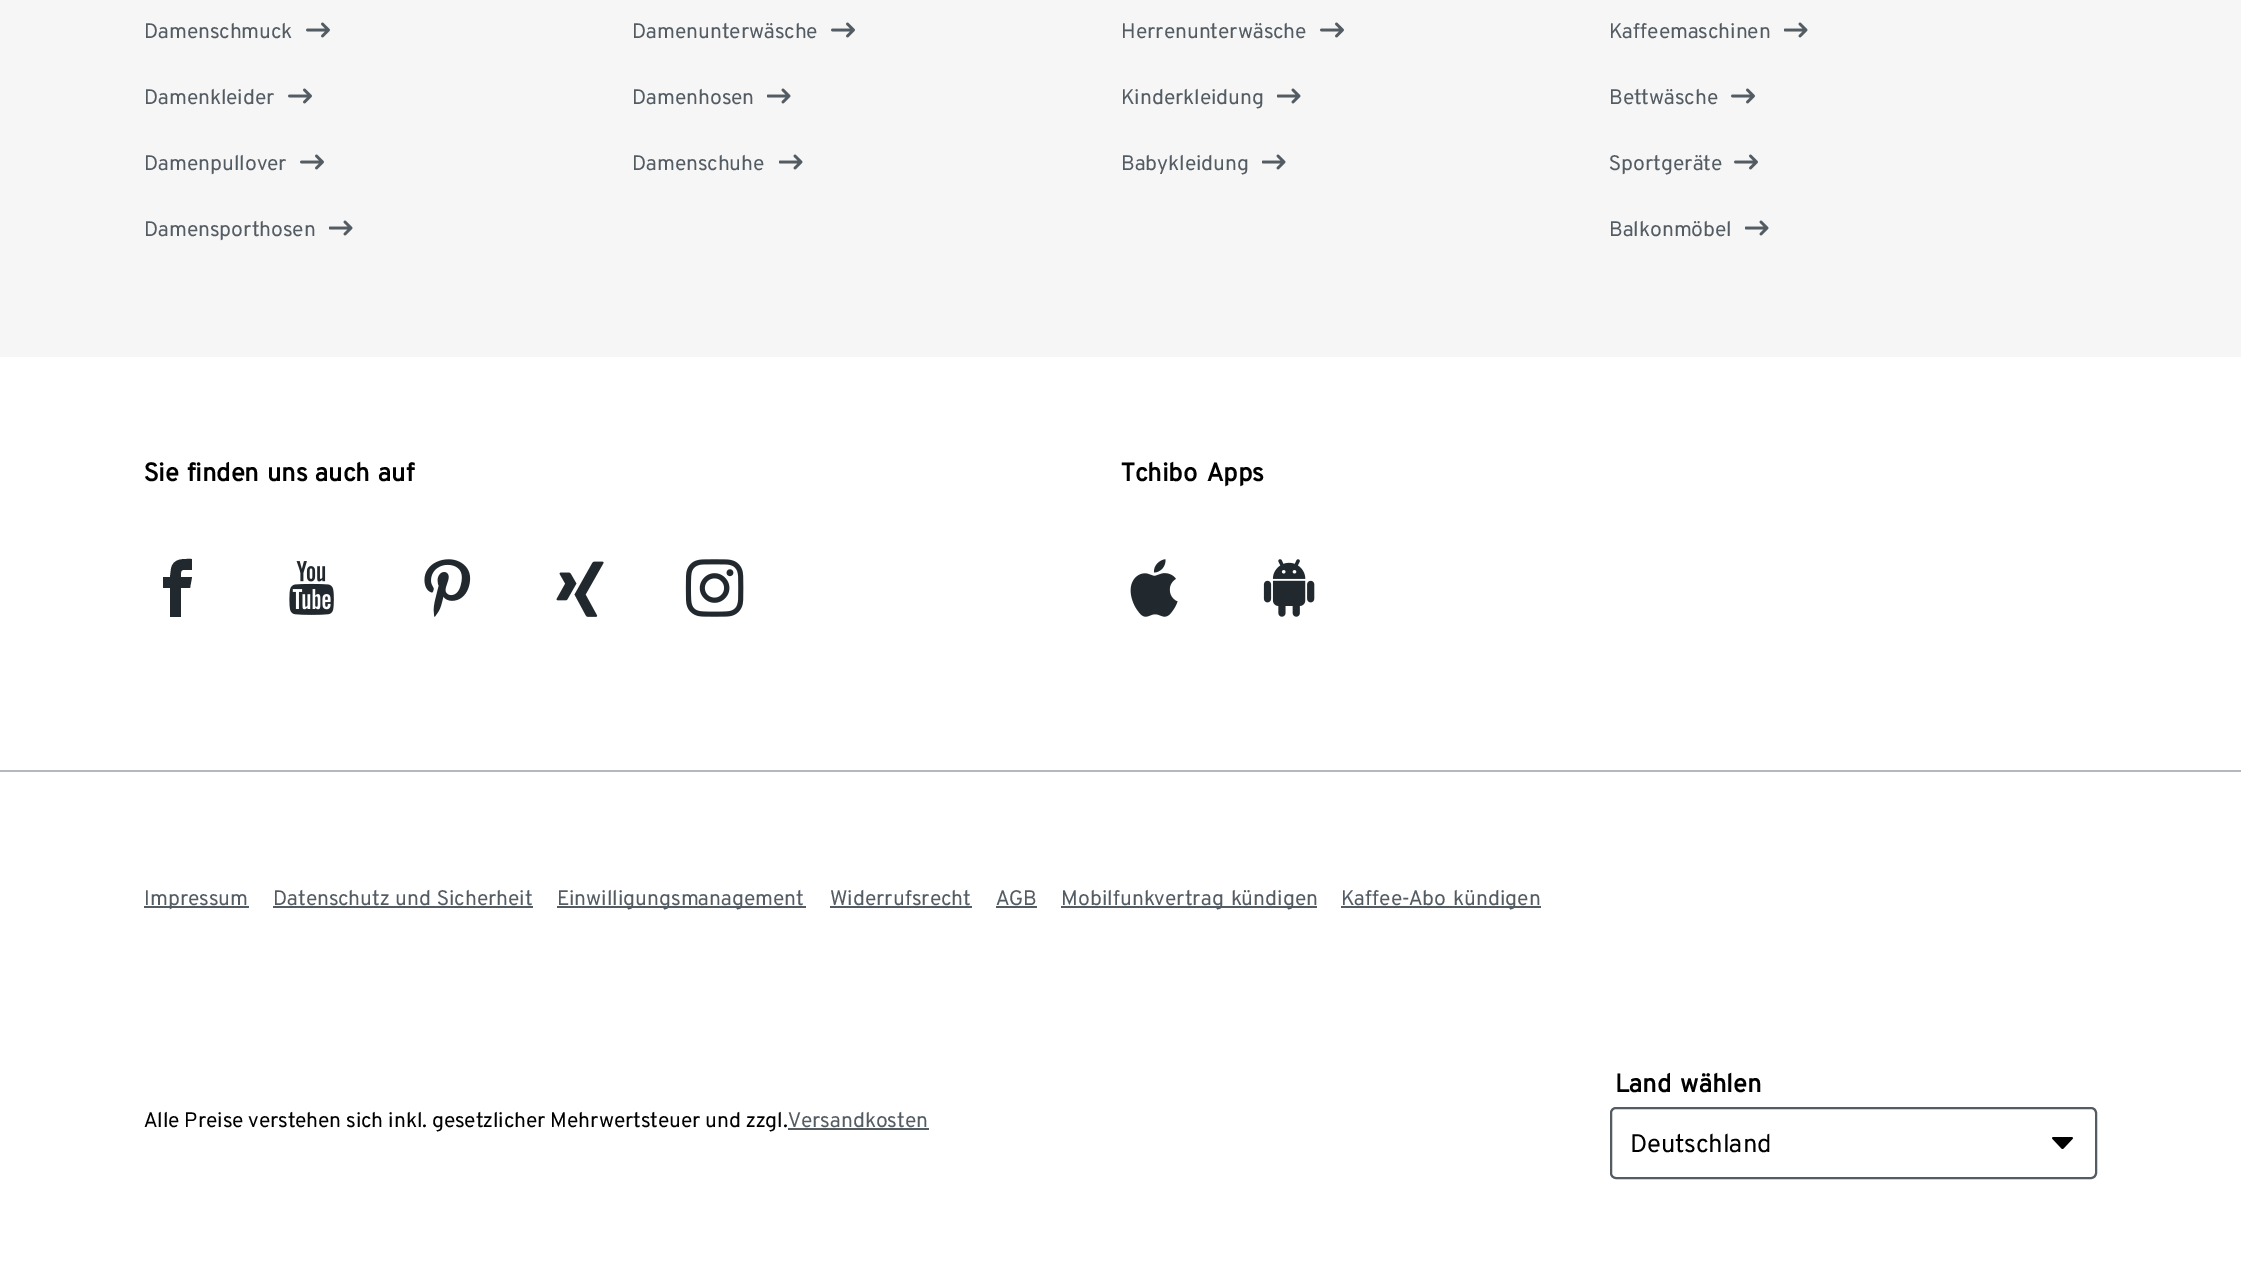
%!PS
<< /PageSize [2241 1275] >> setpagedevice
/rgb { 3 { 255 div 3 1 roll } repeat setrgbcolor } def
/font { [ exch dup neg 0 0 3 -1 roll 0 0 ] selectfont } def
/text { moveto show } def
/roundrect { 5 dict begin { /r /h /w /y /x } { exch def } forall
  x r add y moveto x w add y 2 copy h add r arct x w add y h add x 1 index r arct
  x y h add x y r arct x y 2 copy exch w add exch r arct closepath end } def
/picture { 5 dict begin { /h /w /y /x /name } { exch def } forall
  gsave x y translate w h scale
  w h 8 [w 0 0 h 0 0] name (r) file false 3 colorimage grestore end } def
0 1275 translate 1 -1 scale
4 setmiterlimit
255 255 255 rgb
0 0 2241 1275 rectfill
246 246 246 rgb
0 0 2241 357 rectfill
(img_01.rgb) 306 22 24 16 picture
(img_01.rgb) 288 88 24 16 picture
(img_01.rgb) 300 154 24 16 picture
(img_02.rgb) 329 220 24 16 picture
(img_01.rgb) 831 22 24 16 picture
(img_02.rgb) 767 88 24 16 picture
(img_02.rgb) 779 154 24 16 picture
(img_01.rgb) 1320 22 24 16 picture
(img_02.rgb) 1277 88 24 16 picture
(img_02.rgb) 1262 154 24 16 picture
(img_02.rgb) 1784 22 24 16 picture
(img_01.rgb) 1731 88 24 16 picture
(img_01.rgb) 1734 154 24 16 picture
(img_02.rgb) 1745 220 24 16 picture
33 41 47 rgb
183 570 moveto 9 0 rlineto 0 -11 rlineto -9 0 -19 -1 -21 10 rcurveto -1 8 rlineto -7 0 rlineto 0 11 rlineto 7 0 rlineto 0 29 rlineto 11 0 rlineto 0 -29 rlineto 9 0 rlineto 2 -11 rlineto -11 0 rlineto 0 -1 -1 -7 2 -7 rcurveto closepath fill
(img_03.rgb) 289 561 45 54 picture
(img_04.rgb) 424 559 47 58 picture
(img_05.rgb) 556 561 48 56 picture
(img_06.rgb) 685 559 59 58 picture
(img_07.rgb) 1130 559 48 58 picture
(img_08.rgb) 1263 559 52 58 picture
178 184 189 rgb
0 770 2241 2 rectfill
84 92 99 rgb
144 906 105 2 rectfill
273 906 260 2 rectfill
557 906 249 2 rectfill
830 906 142 2 rectfill
996 906 41 2 rectfill
1061 906 256 2 rectfill
1341 906 200 2 rectfill
788 1128 141 2 rectfill
2 setlinewidth
1611 1108 485 70 5 roundrect stroke
(img_09.rgb) 2052 1137 21 12 picture
/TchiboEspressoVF-Regular 21 font
(Damenschmuck) 144 38 text
(Damenkleider) 144 104 text
(Damenpullover) 144 170 text
(Damensporthosen) 144 236 text
(Damenunterwäsche) 632 38 text
(Damenhosen) 632 104 text
(Damenschuhe) 632 170 text
(Herrenunterwäsche) 1121 38 text
(Kinderkleidung) 1121 104 text
(Babykleidung) 1121 170 text
(Kaffeemaschinen) 1609 38 text
(Bettwäsche) 1609 104 text
(Sportgeräte) 1609 170 text
(Balkonmöbel) 1609 236 text
/TchiboEspressoVF-Bold 25.5 font
0 0 0 rgb
144 481 moveto 2 0 32 (Sie finden uns auch auf) widthshow
1121 481 moveto 4 0 32 (Tchibo Apps) widthshow
/TchiboEspressoVF-Regular 21 font
84 92 99 rgb
(Impressum) 144 905 text
273 905 moveto 1 0 32 (Datenschutz und Sicherheit) widthshow
(Einwilligungsmanagement) 557 905 text
(Widerrufsrecht) 830 905 text
(AGB) 996 905 text
1061 905 moveto 2 0 32 (Mobilfunkvertrag kündigen) widthshow
1341 905 moveto 2 0 32 (Kaffee-Abo kündigen) widthshow
0 0 0 rgb
(Alle Preise verstehen sich inkl. gesetzlicher Mehrwertsteuer und zzgl.) 144 1127 text
84 92 99 rgb
(Versandkosten) 788 1127 text
/TchiboEspressoVF-Bold 25.5 font
0 0 0 rgb
1615 1092 moveto 3 0 32 (Land wählen) widthshow
/TchiboEspressoVF-Regular 25.5 font
(Deutschland) 1630 1152 text
showpage
